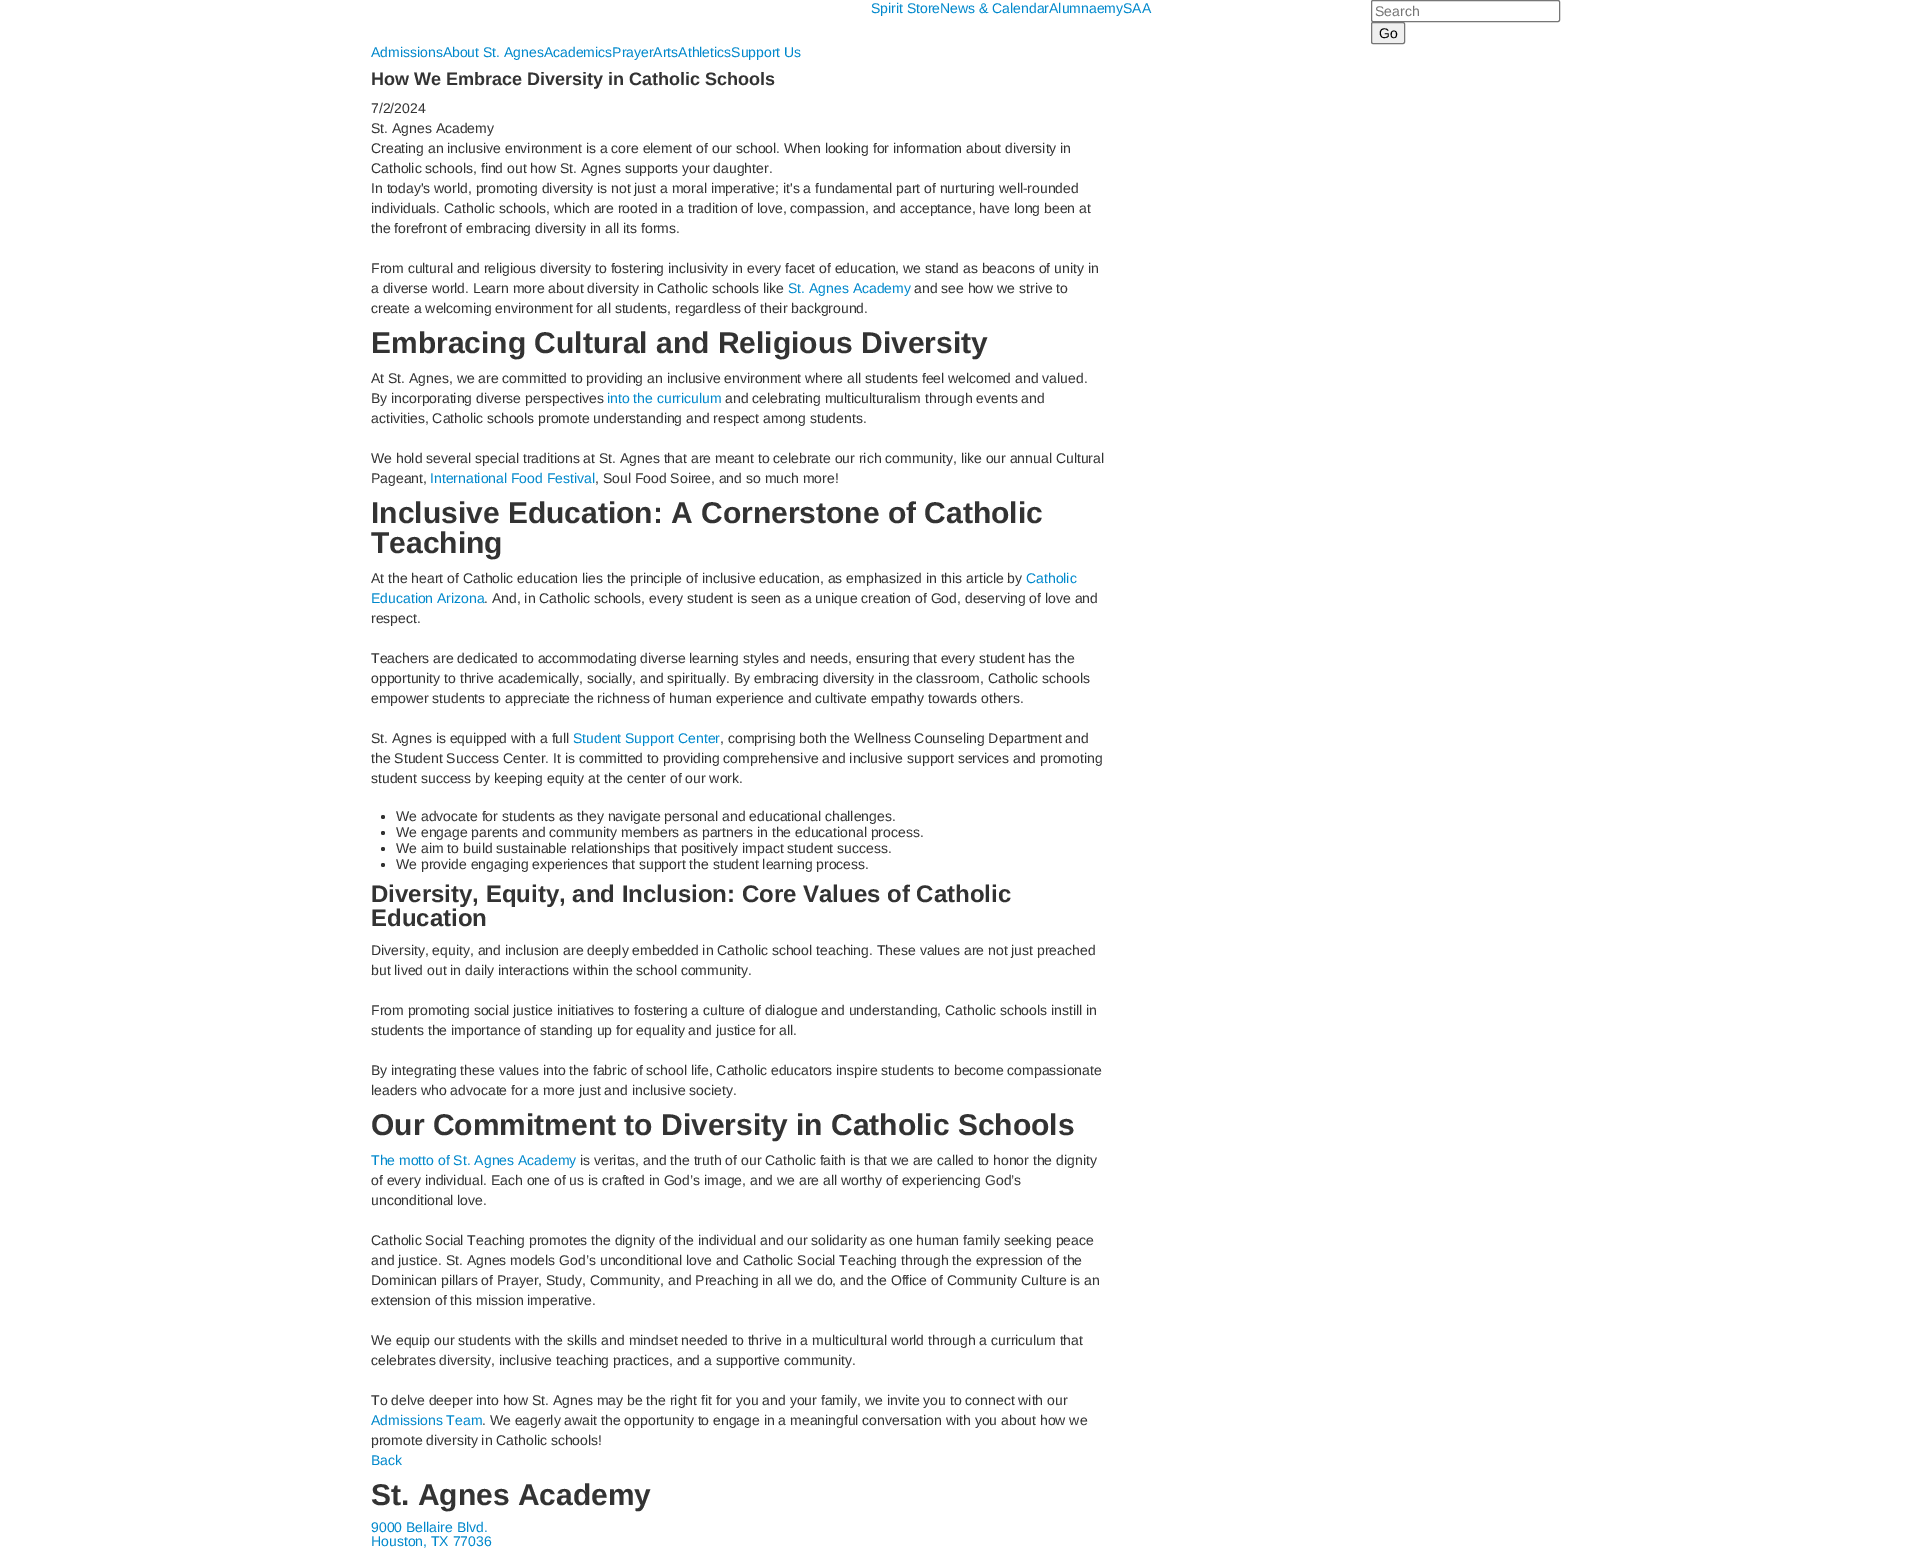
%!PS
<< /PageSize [1926 1552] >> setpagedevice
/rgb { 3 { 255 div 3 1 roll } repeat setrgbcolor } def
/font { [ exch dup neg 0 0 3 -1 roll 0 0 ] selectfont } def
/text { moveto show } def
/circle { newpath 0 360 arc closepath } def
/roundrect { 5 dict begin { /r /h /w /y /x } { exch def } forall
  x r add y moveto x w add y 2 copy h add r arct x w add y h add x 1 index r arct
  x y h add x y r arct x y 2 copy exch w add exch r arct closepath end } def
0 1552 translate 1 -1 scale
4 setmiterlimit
255 255 255 rgb
0 0 1926 1552 rectfill
118 118 118 rgb
1371.5 0.5 188 21 1.5 roundrect stroke
239 239 239 rgb
1371.5 22.5 33 21 1.5 roundrect gsave fill grestore
118 118 118 rgb
stroke
51 51 51 rgb
383 817 2 circle fill
383 833 2 circle fill
383 849 2 circle fill
383 865 2 circle fill
/LiberationSans-Regular 14 font
0 136 204 rgb
(Spirit StoreNews & CalendarAlumnaemySAA) 871 13 text
117 117 117 rgb
(Search) 1375 16 text
0 0 0 rgb
(Go) 1379 38 text
0 136 204 rgb
(AdmissionsAbout St. AgnesAcademicsPrayerArtsAthleticsSupport Us) 371 57 text
/LiberationSans-Bold 18 font
51 51 51 rgb
(How We Embrace Diversity in Catholic Schools) 371 85 text
/LiberationSans-Regular 14 font
(7/2/2024) 371 113 text
(St. Agnes Academy) 371 133 text
(Creating an inclusive environment is a core element of our school. When looking for information about diversity in) 371 153 text
(Catholic schools, find out how St. Agnes supports your daughter.) 371 173 text
(In today's world, promoting diversity is not just a moral imperative; it's a fundamental part of nurturing well-rounded) 371 193 text
(individuals. Catholic schools, which are rooted in a tradition of love, compassion, and acceptance, have long been at) 371 213 text
(the forefront of embracing diversity in all its forms.) 371 233 text
(From cultural and religious diversity to fostering inclusivity in every facet of education, we stand as beacons of unity in) 371 273 text
(a diverse world. Learn more about diversity in Catholic schools like) 371 293 text
0 136 204 rgb
(St. Agnes Academy) 788 293 text
51 51 51 rgb
(and see how we strive to) 914 293 text
(create a welcoming environment for all students, regardless of their background.) 371 313 text
/LiberationSans-Bold 30 font
(Embracing Cultural and Religious Diversity) 371 353 text
/LiberationSans-Regular 14 font
(At St. Agnes, we are committed to providing an inclusive environment where all students feel welcomed and valued.) 371 383 text
(By incorporating diverse perspectives) 371 403 text
0 136 204 rgb
(into the curriculum) 607 403 text
51 51 51 rgb
(and celebrating multiculturalism through events and) 725 403 text
(activities, Catholic schools promote understanding and respect among students.) 371 423 text
(We hold several special traditions at St. Agnes that are meant to celebrate our rich community, like our annual Cultural) 371 463 text
(Pageant,) 371 483 text
0 136 204 rgb
(International Food Festival) 430 483 text
51 51 51 rgb
(, Soul Food Soiree, and so much more!) 595 483 text
/LiberationSans-Bold 30 font
(Inclusive Education: A Cornerstone of Catholic) 371 523 text
(Teaching) 371 553 text
/LiberationSans-Regular 14 font
(At the heart of Catholic education lies the principle of inclusive education, as emphasized in this article by) 371 583 text
0 136 204 rgb
(Catholic) 1026 583 text
(Education Arizona) 371 603 text
51 51 51 rgb
(. And, in Catholic schools, every student is seen as a unique creation of God, deserving of love and) 484 603 text
(respect.) 371 623 text
(Teachers are dedicated to accommodating diverse learning styles and needs, ensuring that every student has the) 371 663 text
(opportunity to thrive academically, socially, and spiritually. By embracing diversity in the classroom, Catholic schools) 371 683 text
(empower students to appreciate the richness of human experience and cultivate empathy towards others.) 371 703 text
(St. Agnes is equipped with a full) 371 743 text
0 136 204 rgb
(Student Support Center) 573 743 text
51 51 51 rgb
(, comprising both the Wellness Counseling Department and) 720 743 text
(the Student Success Center. It is committed to providing comprehensive and inclusive support services and promoting) 371 763 text
(student success by keeping equity at the center of our work.) 371 783 text
(We advocate for students as they navigate personal and educational challenges.) 396 821 text
(We engage parents and community members as partners in the educational process.) 396 837 text
(We aim to build sustainable relationships that positively impact student success.) 396 853 text
(We provide engaging experiences that support the student learning process.) 396 869 text
/LiberationSans-Bold 24 font
(Diversity, Equity, and Inclusion: Core Values of Catholic) 371 902 text
(Education) 371 926 text
/LiberationSans-Regular 14 font
(Diversity, equity, and inclusion are deeply embedded in Catholic school teaching. These values are not just preached) 371 955 text
(but lived out in daily interactions within the school community.) 371 975 text
(From promoting social justice initiatives to fostering a culture of dialogue and understanding, Catholic schools instill in) 371 1015 text
(students the importance of standing up for equality and justice for all.) 371 1035 text
(By integrating these values into the fabric of school life, Catholic educators inspire students to become compassionate) 371 1075 text
(leaders who advocate for a more just and inclusive society.) 371 1095 text
/LiberationSans-Bold 30 font
(Our Commitment to Diversity in Catholic Schools) 371 1135 text
/LiberationSans-Regular 14 font
0 136 204 rgb
(The motto of St. Agnes Academy) 371 1165 text
51 51 51 rgb
(is veritas, and the truth of our Catholic faith is that we are called to honor the dignity) 580 1165 text
(of every individual. Each one of us is crafted in God’s image, and we are all worthy of experiencing God’s) 371 1185 text
(unconditional love.) 371 1205 text
(Catholic Social Teaching promotes the dignity of the individual and our solidarity as one human family seeking peace) 371 1245 text
(and justice. St. Agnes models God’s unconditional love and Catholic Social Teaching through the expression of the) 371 1265 text
(Dominican pillars of Prayer, Study, Community, and Preaching in all we do, and the Office of Community Culture is an) 371 1285 text
(extension of this mission imperative.) 371 1305 text
(We equip our students with the skills and mindset needed to thrive in a multicultural world through a curriculum that) 371 1345 text
(celebrates diversity, inclusive teaching practices, and a supportive community.) 371 1365 text
(To delve deeper into how St. Agnes may be the right fit for you and your family, we invite you to connect with our) 371 1405 text
0 136 204 rgb
(Admissions Team) 371 1425 text
51 51 51 rgb
(. We eagerly await the opportunity to engage in a meaningful conversation with you about how we) 482 1425 text
(promote diversity in Catholic schools!) 371 1445 text
0 136 204 rgb
(Back) 371 1465 text
/LiberationSans-Bold 30 font
51 51 51 rgb
(St. Agnes Academy) 371 1505 text
/LiberationSans-Regular 14 font
0 136 204 rgb
(9000 Bellaire Blvd.) 371 1532 text
(Houston, TX 77036) 371 1546 text
showpage
